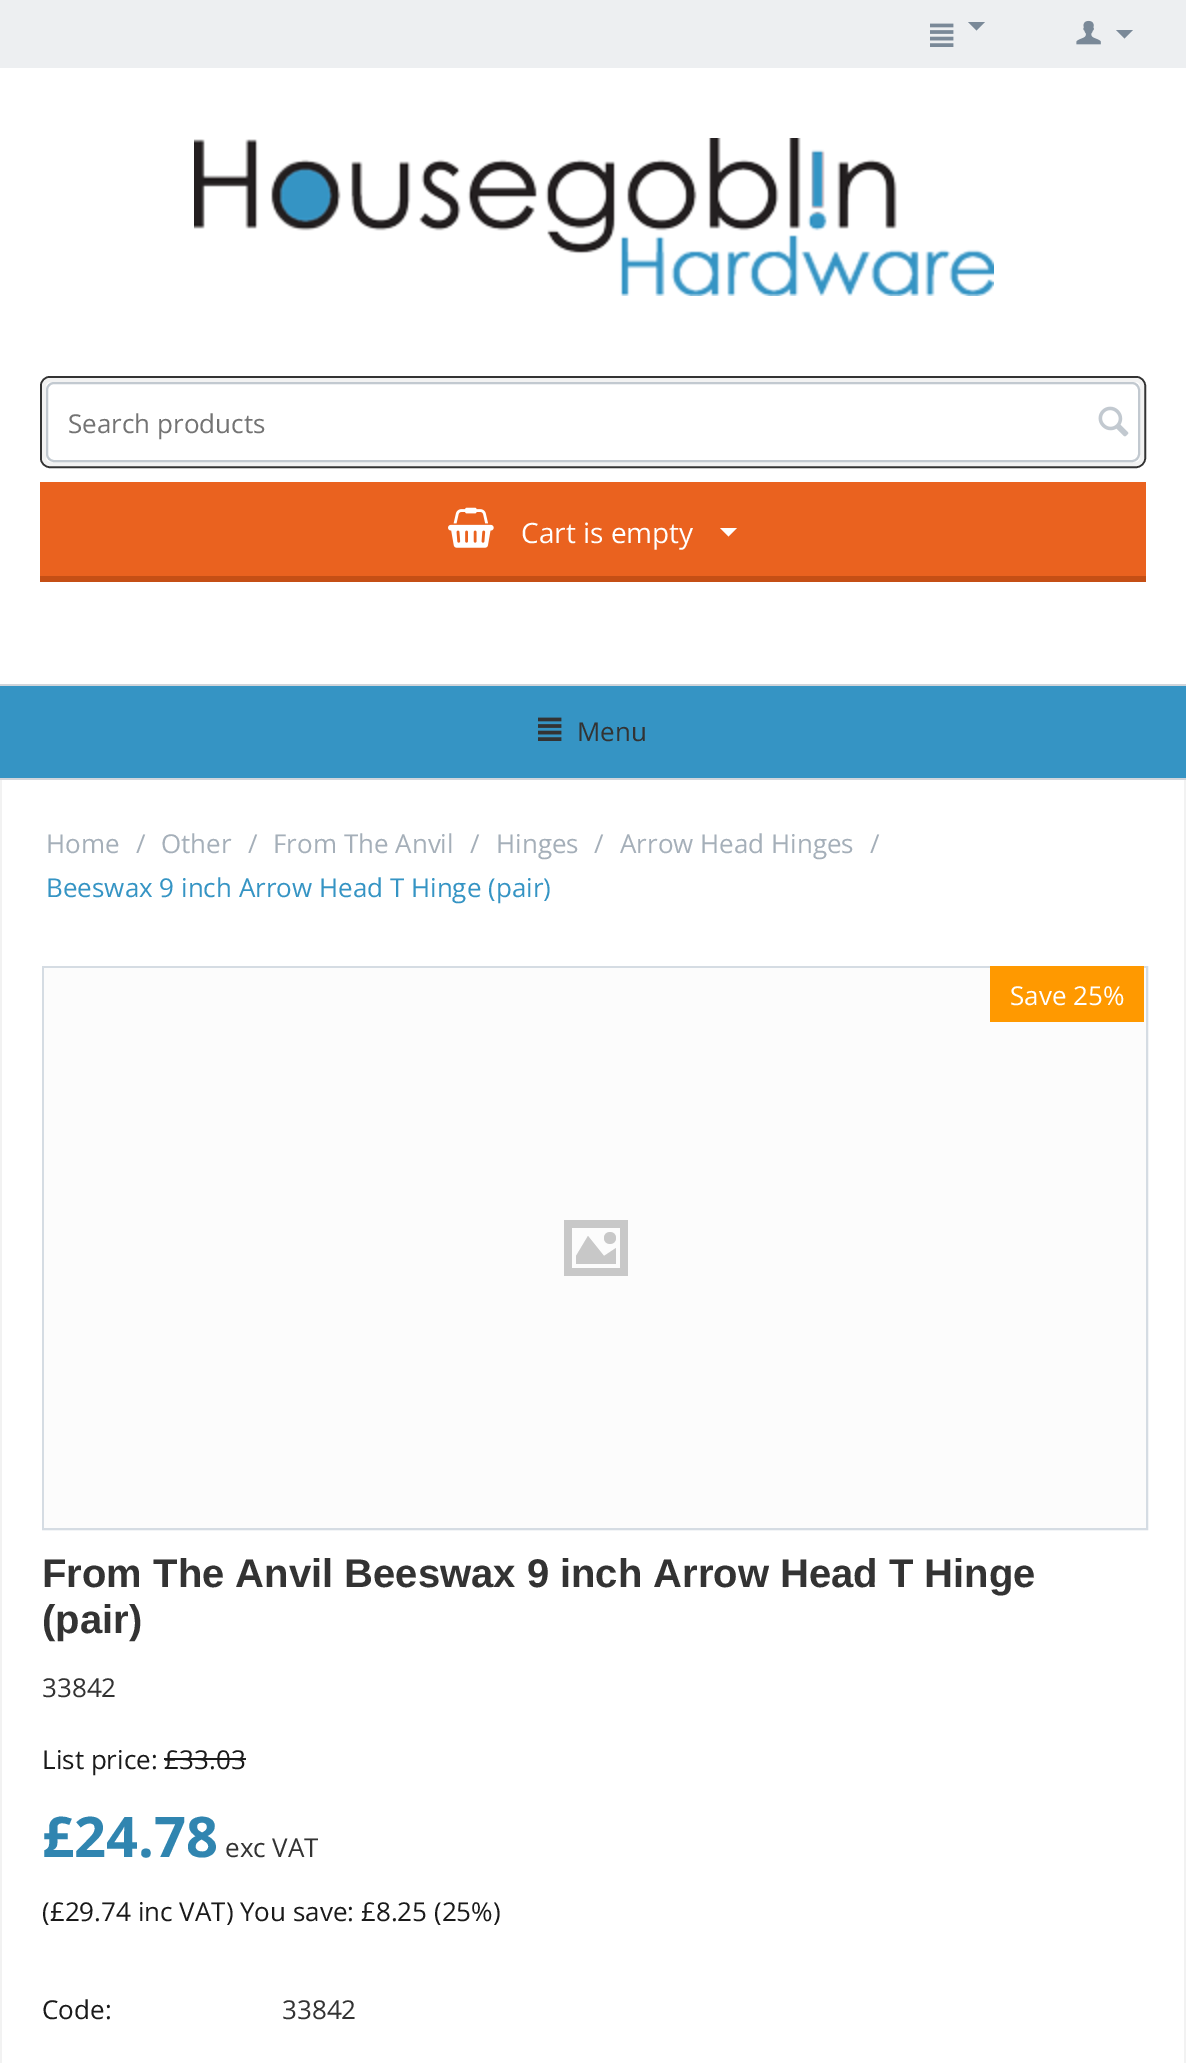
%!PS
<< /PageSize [1186 2063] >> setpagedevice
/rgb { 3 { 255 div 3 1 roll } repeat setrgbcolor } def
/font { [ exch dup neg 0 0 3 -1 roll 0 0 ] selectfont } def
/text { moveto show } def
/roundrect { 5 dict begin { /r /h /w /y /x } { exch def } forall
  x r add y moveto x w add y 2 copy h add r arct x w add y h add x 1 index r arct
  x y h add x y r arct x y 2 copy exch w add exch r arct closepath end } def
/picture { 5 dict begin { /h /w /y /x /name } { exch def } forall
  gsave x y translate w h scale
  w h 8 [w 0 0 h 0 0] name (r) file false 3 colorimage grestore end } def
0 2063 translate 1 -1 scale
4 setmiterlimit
237 239 241 rgb
0 0 1186 2063 rectfill
(img_01.rgb) 930 23 24 24 picture
122 137 152 rgb
976.5 30.5 moveto -8.5 -8.5 rlineto 17 0 rlineto closepath fill
(img_02.rgb) 1076 20 25 25 picture
1124.5 38.5 moveto -8.5 -8.5 rlineto 17 0 rlineto closepath fill
255 255 255 rgb
0 68 1186 616 rectfill
(img_03.rgb) 194 138 800 158 picture
51 51 51 rgb
2 setlinewidth
41 377 1104 90 9 roundrect stroke
242 242 242 rgb
4 setlinewidth
44 380 1098 84 6 roundrect stroke
194 201 208 rgb
2 setlinewidth
47 383 1092 78 7 roundrect stroke
(img_04.rgb) 1098 406 31 31 picture
234 98 31 rgb
40 482 1106 94 rectfill
197 79 21 rgb
40 576 1106 6 rectfill
(img_05.rgb) 448 507 46 41 picture
255 255 255 rgb
728.5 536.5 moveto -8.5 -8.5 rlineto 17 0 rlineto closepath fill
208 213 219 rgb
0 684 1186 2 rectfill
0 778 1186 2 rectfill
53 148 196 rgb
0 686 1186 92 rectfill
(img_06.rgb) 538 717 24 24 picture
255 255 255 rgb
2 780 1182 1283 rectfill
242 242 242 rgb
1184 780 2 1283 rectfill
0 780 2 1283 rectfill
213 220 227 rgb
43 967 1104 562 rectstroke
252 252 252 rgb
44 968 1102 560 rectfill
200 200 200 rgb
620 1228 moveto -48 0 rlineto 0 40 rlineto 48 0 rlineto closepath 628 1220 moveto 0 56 rlineto -64 0 rlineto 0 -56 rlineto closepath 616 1264 moveto -40 0 rlineto 0 -8 rlineto 12 -20 rlineto 16 20 rlineto 12 -8 rlineto closepath 604 1238 moveto 0 8 12 8 12 0 rcurveto 0 -8 -12 -8 -12 0 rcurveto closepath fill
255 153 0 rgb
990 966 154 56 rectfill
/OpenSans-Regular 26 font
115 115 115 rgb
(Search products) 68 433 text
/OpenSans-Regular 28 font
255 255 255 rgb
(Cart is empty) 521 543 text
/OpenSans-Regular 26 font
51 51 51 rgb
(Menu) 577 741 text
165 175 185 rgb
(Home) 46 853 text
(/) 136 853 text
(Other) 161 853 text
(/) 248 853 text
(From The Anvil) 273 853 text
(/) 470 853 text
(Hinges) 496 853 text
(/) 594 853 text
(Arrow Head Hinges) 620 853 text
(/) 870 853 text
53 148 196 rgb
(Beeswax 9 inch Arrow Head T Hinge \(pair\)) 46 897 text
255 255 255 rgb
(Save 25%) 1010 1005 text
/LiberationSans-Bold 40 font
51 51 51 rgb
(From The Anvil Beeswax 9 inch Arrow Head T Hinge) 42 1587 text
(\(pair\)) 42 1633 text
/OpenSans-Regular 26 font
(33842) 42 1697 text
26 26 26 rgb
(List price: £33.03) 42 1769 text
27 27 27 rgb
164 1758 82 2 rectfill
/OpenSans-Bold 56 font
48 133 176 rgb
(£24.78) 42 1857 text
/OpenSans-Regular 26 font
51 51 51 rgb
(exc VAT) 225 1857 text
26 26 26 rgb
(\(£29.74 inc VAT\) You save: £8.25 \(25%\)) 42 1921 text
(Code:) 42 2019 text
51 51 51 rgb
(33842) 282 2019 text
showpage
